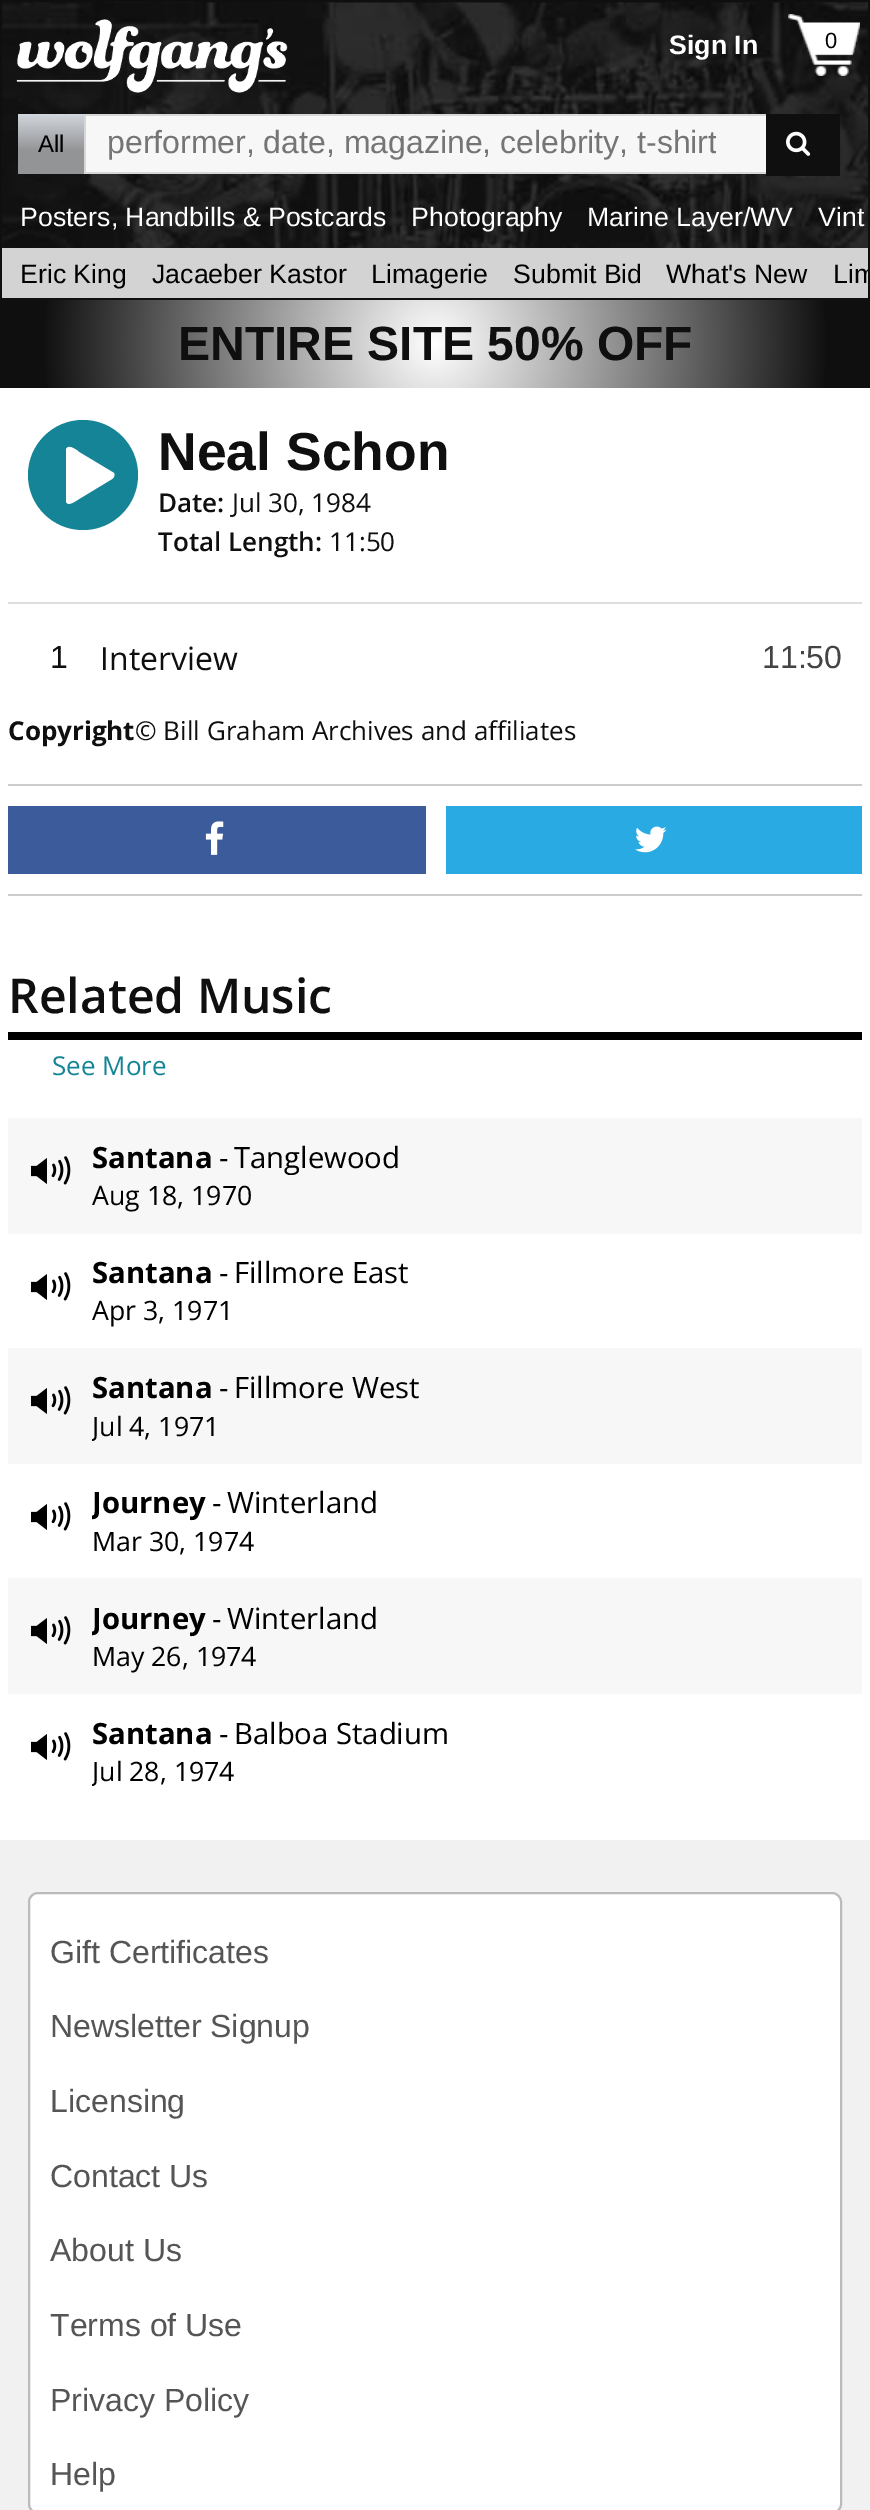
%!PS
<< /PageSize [870 2510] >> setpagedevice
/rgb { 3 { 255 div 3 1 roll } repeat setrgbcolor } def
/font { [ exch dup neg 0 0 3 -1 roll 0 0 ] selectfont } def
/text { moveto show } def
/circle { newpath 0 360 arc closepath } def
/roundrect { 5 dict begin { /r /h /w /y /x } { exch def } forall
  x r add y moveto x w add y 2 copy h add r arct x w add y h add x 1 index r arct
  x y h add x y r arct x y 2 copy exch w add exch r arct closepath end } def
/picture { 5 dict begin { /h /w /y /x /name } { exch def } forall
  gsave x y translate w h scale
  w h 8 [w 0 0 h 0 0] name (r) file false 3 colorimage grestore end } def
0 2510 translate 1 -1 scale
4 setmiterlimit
255 255 255 rgb
0 0 870 2510 rectfill
(img_01.rgb) 2 2 866 246 picture
15 15 15 rgb
2 setlinewidth
1 1 868 298 rectstroke
(img_02.rgb) 16 19 272 74 picture
(img_03.rgb) 788 14 72 62 picture
gsave 18 114 moveto 66 0 rlineto 0 60 rlineto -66 0 rlineto closepath clip newpath
<< /ShadingType 2 /ColorSpace /DeviceRGB /Coords [51 114 51 174] /Extend [true true] /Function << /FunctionType 3 /Domain [0 1] /Functions [<< /FunctionType 2 /Domain [0 1] /C0 [0.824 0.843 0.867] /C1 [0.573 0.58 0.588] /N 1 >> << /FunctionType 2 /Domain [0 1] /C0 [0.573 0.58 0.588] /C1 [0.573 0.58 0.588] /N 1 >>] /Bounds [0.61] /Encode [0 1 0 1] >> >> shfill grestore
247 247 247 rgb
86 116 680 56 rectfill
215 215 215 rgb
84 114 682 2 rectfill
84 172 682 2 rectfill
84 114 2 60 rectfill
15 15 15 rgb
766 114 74 62 rectfill
(img_04.rgb) 786 131 25 25 picture
211 211 211 rgb
2 248 866 50 rectfill
gsave 0 300 moveto 870 0 rlineto 0 88 rlineto -870 0 rlineto closepath clip newpath 435 344 translate 437 437 scale
<< /ShadingType 3 /ColorSpace /DeviceRGB /Coords [0 0 0 0 0 1] /Extend [true true] /Function << /FunctionType 3 /Domain [0 1] /Functions [<< /FunctionType 2 /Domain [0 1] /C0 [1 1 1] /C1 [0.059 0.059 0.059] /N 1 >> << /FunctionType 2 /Domain [0 1] /C0 [0.059 0.059 0.059] /C1 [0.059 0.059 0.059] /N 1 >>] /Bounds [0.9] /Encode [0 1 0 1] >> >> shfill grestore
21 132 150 rgb
83 475 55 circle fill
255 255 255 rgb
112 479 moveto -33 20 rlineto -2 1 -12 9 -13 2 rcurveto 0 -51 rlineto 1 -7 11 0 13 2 rcurveto 35 21 rlineto 1 2 0 5 -2 6 rcurveto closepath fill
221 221 221 rgb
8 602 854 2 rectfill
204 204 204 rgb
8 784 854 2 rectfill
8 894 854 2 rectfill
60 91 155 rgb
8 806 418 68 rectfill
(img_05.rgb) 205 821 19 34 picture
41 170 227 rgb
446 806 416 68 rectfill
(img_06.rgb) 635 826 32 27 picture
0 0 0 rgb
8 1032 854 8 rectfill
247 247 247 rgb
8 1118 854 116 rectfill
(img_07.rgb) 31 1156 40 29 picture
(img_08.rgb) 31 1272 40 29 picture
8 1348 854 116 rectfill
(img_07.rgb) 31 1386 40 29 picture
(img_08.rgb) 31 1502 40 29 picture
8 1578 854 116 rectfill
(img_07.rgb) 31 1616 40 29 picture
(img_08.rgb) 31 1732 40 29 picture
241 241 241 rgb
0 1840 870 670 rectfill
255 255 255 rgb
29 1893 812 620 9 roundrect gsave fill grestore
187 187 187 rgb
stroke
/LiberationSans-Bold 26.7 font
255 255 255 rgb
(Sign In) 669 54 text
/LiberationSans-Regular 22 font
0 0 0 rgb
(0) 825 48 text
/LiberationSans-Regular 24 font
(All) 38 152 text
gsave
106 126 610 36 rectclip
/LiberationSans-Regular 32 font
117 117 117 rgb
(performer, date, magazine, celebrity, t-shirt) 107 153 text
grestore
/LiberationSans-Regular 26.7 font
255 255 255 rgb
(Posters, Handbills & Postcards) 20 226 text
(Photography) 411 226 text
(Marine Layer/WV) 587 226 text
(Vint) 818 226 text
0 0 0 rgb
(Eric King) 20 283 text
(Jacaeber Kastor) 152 283 text
(Limagerie) 371 283 text
(Submit Bid) 513 283 text
(What's New) 666 283 text
gsave
2 248 866 50 rectclip
(Lim) 833 283 text
grestore
/LiberationSans-Bold 48 font
15 15 15 rgb
(ENTIRE SITE 50% OFF) 178 360 text
/LiberationSans-Bold 53.5 font
(Neal Schon) 158 470 text
/OpenSans-SemiBold 26 font
(Date:) 158 512 text
/OpenSans-Regular 26 font
(Jul 30, 1984) 232 512 text
/OpenSans-SemiBold 26 font
(Total Length:) 158 551 text
/OpenSans-Regular 26 font
(11:50) 329 551 text
/LiberationSans-Regular 32 font
(1) 50 668 text
/OpenSans-Regular 32 font
(Interview) 100 670 text
/LiberationSans-Regular 32 font
68 68 68 rgb
(11:50) 762 668 text
/OpenSans-Bold 26 font
15 15 15 rgb
(Copyright) 8 740 text
/OpenSans-Regular 26 font
(© Bill Graham Archives and affiliates) 135 740 text
/OpenSans-SemiBold 48 font
(Related Music) 8 1013 text
/OpenSans-Regular 26 font
21 132 150 rgb
(See More) 52 1075 text
/OpenSans-Bold 29.25 font
0 0 0 rgb
(Santana) 92 1168 text
/OpenSans-Regular 29.25 font
(-) 219 1168 text
(Tanglewood) 234 1168 text
/OpenSans-Regular 26.7 font
(Aug 18, 1970) 92 1205 text
/OpenSans-Bold 29.25 font
(Santana) 92 1283 text
/OpenSans-Regular 29.25 font
(-) 219 1283 text
(Fillmore East) 234 1283 text
/OpenSans-Regular 26.7 font
(Apr 3, 1971) 92 1320 text
/OpenSans-Bold 29.25 font
(Santana) 92 1398 text
/OpenSans-Regular 29.25 font
(-) 219 1398 text
(Fillmore West) 234 1398 text
gsave
92 1366 750 82 rectclip
/OpenSans-Regular 26.7 font
(Jul 4, 1971) 92 1436 text
grestore
gsave
92 1482 114 40 rectclip
/OpenSans-Bold 29.25 font
(Journey) 92 1513 text
grestore
(-) 212 1513 text
(Winterland) 227 1513 text
/OpenSans-Regular 26.7 font
(Mar 30, 1974) 92 1551 text
gsave
92 1596 114 42 rectclip
/OpenSans-Bold 29.25 font
(Journey) 92 1629 text
grestore
/OpenSans-Regular 29.25 font
(-) 212 1629 text
(Winterland) 227 1629 text
/OpenSans-Regular 26.7 font
(May 26, 1974) 92 1666 text
/OpenSans-Bold 29.25 font
(Santana) 92 1744 text
/OpenSans-Regular 29.25 font
(-) 219 1744 text
(Balboa Stadium) 234 1744 text
gsave
92 1712 750 80 rectclip
/OpenSans-Regular 26.7 font
(Jul 28, 1974) 92 1781 text
grestore
/LiberationSans-Regular 32 font
85 85 85 rgb
(Gift Certificates) 50 1963 text
(Newsletter Signup) 50 2037 text
(Licensing) 50 2112 text
(Contact Us) 50 2187 text
(About Us) 50 2261 text
(Terms of Use) 50 2336 text
(Privacy Policy) 50 2411 text
(Help) 50 2485 text
showpage
